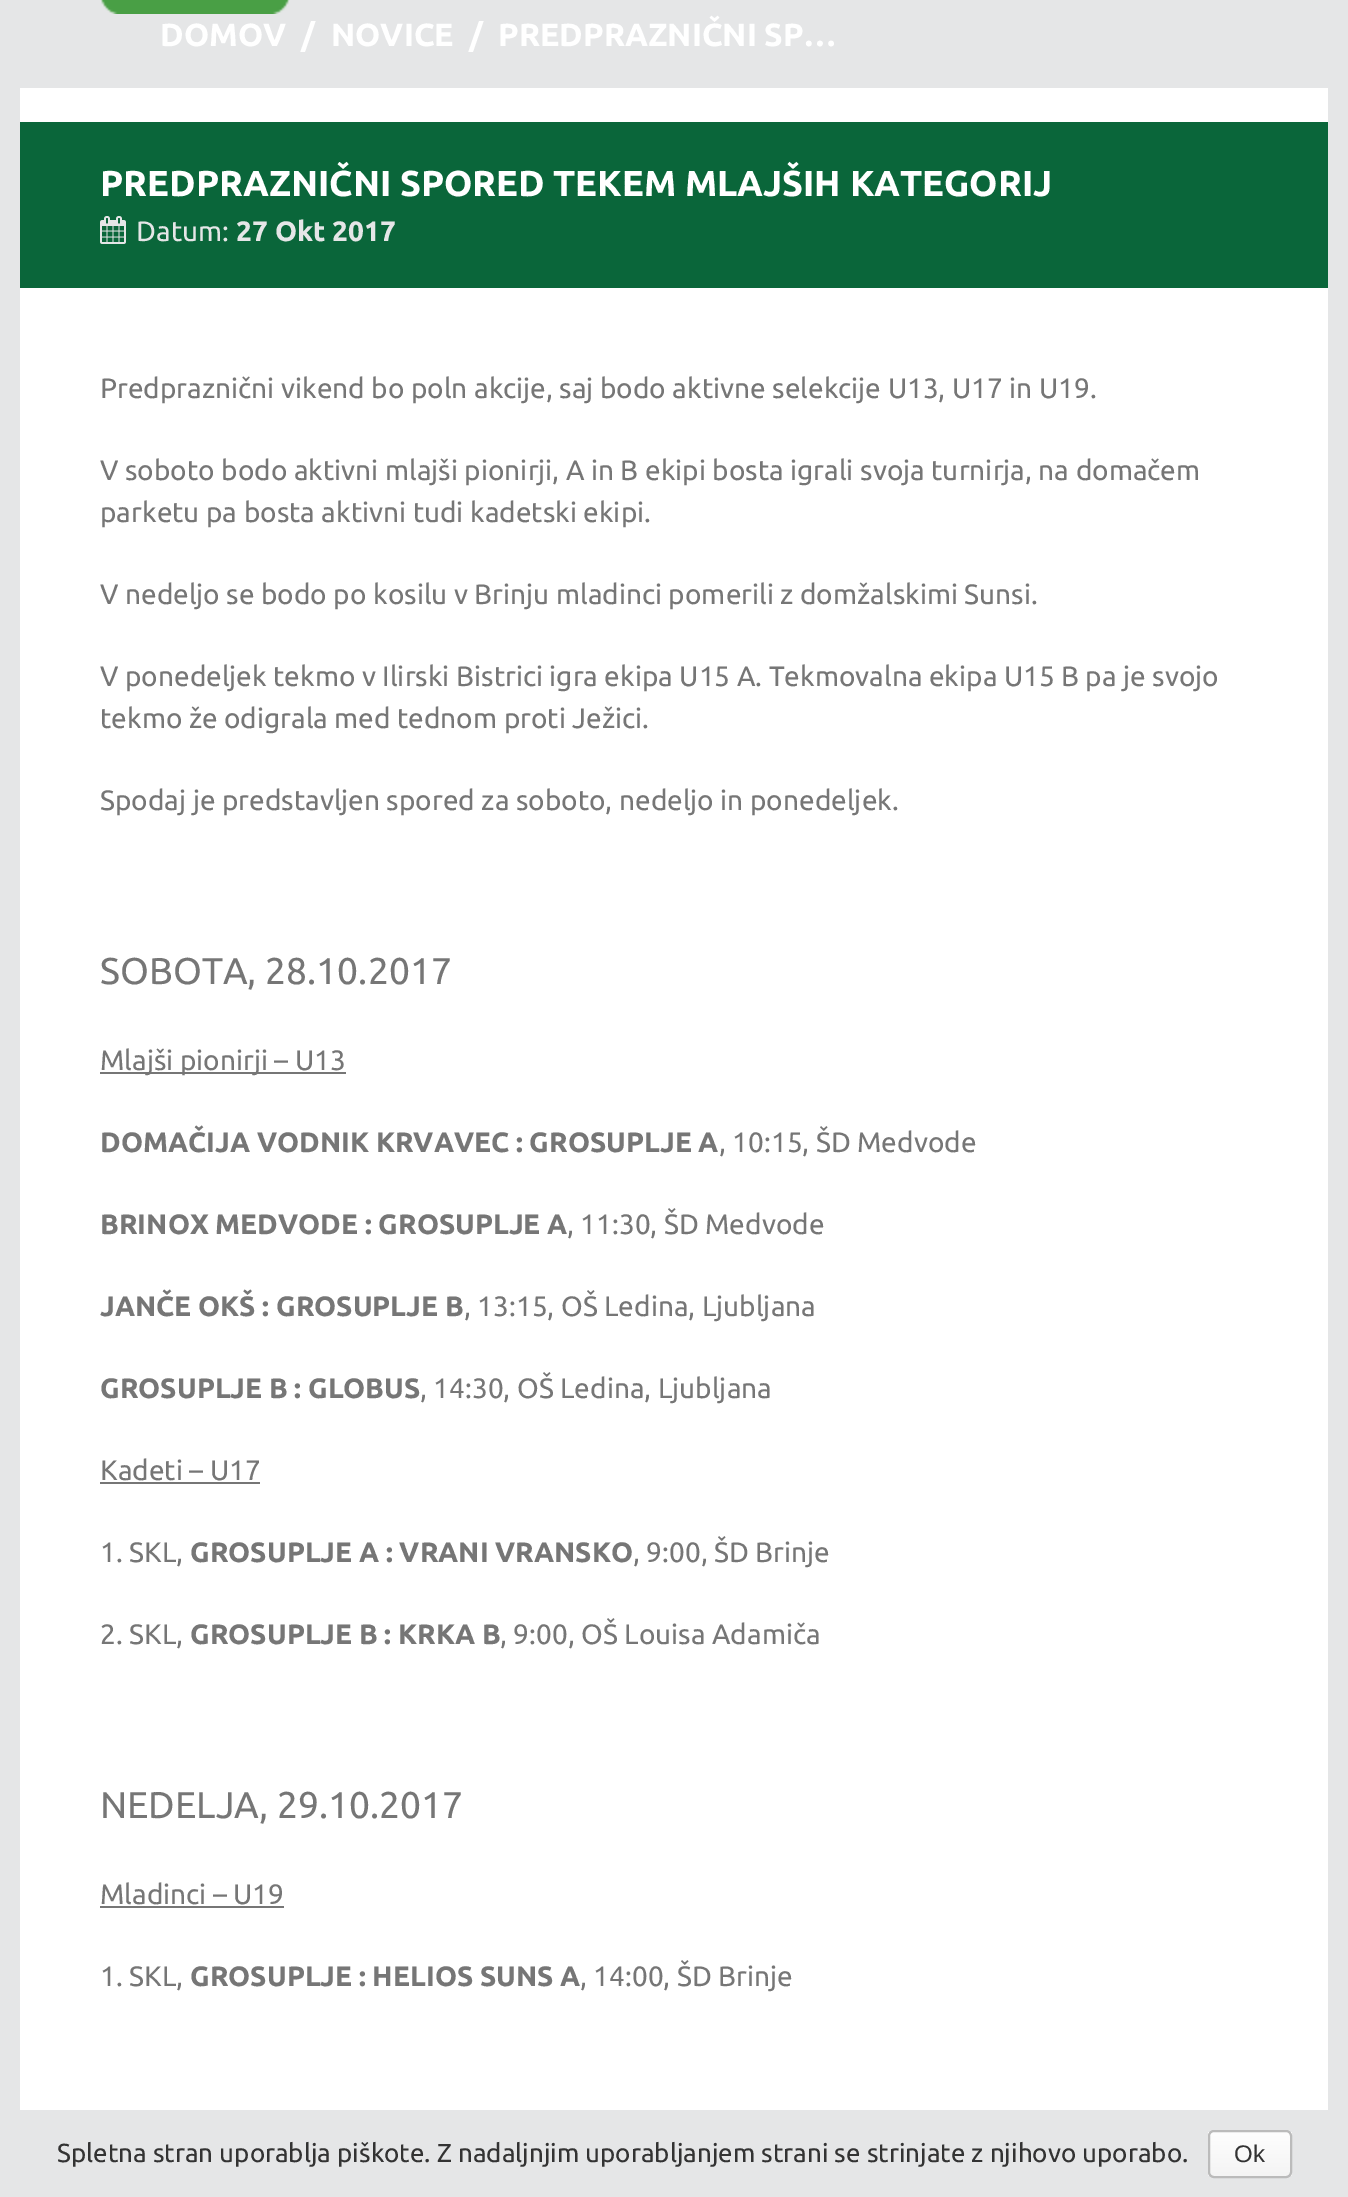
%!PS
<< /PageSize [1348 2197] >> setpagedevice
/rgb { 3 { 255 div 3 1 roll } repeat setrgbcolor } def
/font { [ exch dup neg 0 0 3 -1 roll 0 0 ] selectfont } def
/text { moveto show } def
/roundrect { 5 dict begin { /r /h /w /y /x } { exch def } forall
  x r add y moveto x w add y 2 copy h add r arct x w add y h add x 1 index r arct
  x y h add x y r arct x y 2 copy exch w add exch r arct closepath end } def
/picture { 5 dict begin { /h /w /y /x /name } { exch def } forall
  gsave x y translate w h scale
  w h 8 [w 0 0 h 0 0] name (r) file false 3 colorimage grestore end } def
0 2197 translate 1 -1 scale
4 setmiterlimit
229 230 231 rgb
0 0 1348 2197 rectfill
(img_01.rgb) 100 0 190 14 picture
255 255 255 rgb
20 88 1308 34 rectfill
10 102 58 rgb
20 122 1308 166 rectfill
(img_02.rgb) 100 216 26 28 picture
255 255 255 rgb
20 288 1308 1822 rectfill
118 118 118 rgb
100 1072 246 2 rectfill
100 1482 160 2 rectfill
100 1906 184 2 rectfill
gsave
1208 2130 84 48 6 roundrect clip newpath
gsave 1208 2132 moveto 84 0 rlineto 0 44 rlineto -84 0 rlineto closepath clip newpath
<< /ShadingType 2 /ColorSpace /DeviceRGB /Coords [1250 2132 1250 2176] /Extend [true true] /Function << /FunctionType 2 /Domain [0 1] /C0 [0.996 0.996 0.996] /C1 [0.957 0.957 0.957] /N 1 >> >> shfill grestore
grestore
187 187 187 rgb
2 setlinewidth
1209 2131 82 46 5 roundrect stroke
/Ubuntu-Bold 32 font
255 255 255 rgb
(DOMOV) 160 46 text
(/) 301 46 text
(NOVICE) 331 46 text
(/) 469 46 text
(PREDPRAZNIČNI SP…) 498 46 text
/Ubuntu-Bold 36 font
(PREDPRAZNIČNI SPORED TEKEM MLAJŠIH KATEGORIJ) 100 196 text
/Ubuntu-Regular 28 font
229 230 231 rgb
(Datum:) 136 241 text
/Ubuntu-Bold 28 font
(27 Okt 2017) 236 241 text
/Ubuntu-Regular 28 font
118 118 118 rgb
(Predpraznični vikend bo poln akcije, saj bodo aktivne selekcije U13, U17 in U19.) 100 398 text
(V soboto bodo aktivni mlajši pionirji, A in B ekipi bosta igrali svoja turnirja, na domačem) 100 480 text
(parketu pa bosta aktivni tudi kadetski ekipi.) 100 522 text
(V nedeljo se bodo po kosilu v Brinju mladinci pomerili z domžalskimi Sunsi.) 100 604 text
(V ponedeljek tekmo v Ilirski Bistrici igra ekipa U15 A. Tekmovalna ekipa U15 B pa je svojo) 100 686 text
(tekmo že odigrala med tednom proti Ježici.) 100 728 text
(Spodaj je predstavljen spored za soboto, nedeljo in ponedeljek.) 100 810 text
/Ubuntu-Regular 37.25 font
(SOBOTA, 28.10.2017) 100 984 text
/Ubuntu-Regular 28 font
(Mlajši pionirji – U13) 100 1070 text
/Ubuntu-Bold 28 font
(DOMAČIJA VODNIK KRVAVEC : GROSUPLJE A) 100 1152 text
/Ubuntu-Regular 28 font
(, 10:15, ŠD Medvode) 719 1152 text
/Ubuntu-Bold 28 font
(BRINOX MEDVODE : GROSUPLJE A) 100 1234 text
/Ubuntu-Regular 28 font
(, 11:30, ŠD Medvode) 567 1234 text
/Ubuntu-Bold 28 font
(JANČE OKŠ : GROSUPLJE B) 100 1316 text
/Ubuntu-Regular 28 font
(, 13:15, OŠ Ledina, Ljubljana) 464 1316 text
/Ubuntu-Bold 28 font
(GROSUPLJE B : GLOBUS) 100 1398 text
/Ubuntu-Regular 28 font
(, 14:30, OŠ Ledina, Ljubljana) 420 1398 text
(Kadeti – U17) 100 1480 text
(1. SKL,) 100 1562 text
/Ubuntu-Bold 28 font
(GROSUPLJE A : VRANI VRANSKO) 190 1562 text
/Ubuntu-Regular 28 font
(, 9:00, ŠD Brinje) 633 1562 text
(2. SKL,) 100 1644 text
/Ubuntu-Bold 28 font
(GROSUPLJE B : KRKA B) 190 1644 text
/Ubuntu-Regular 28 font
(, 9:00, OŠ Louisa Adamiča) 500 1644 text
/Ubuntu-Regular 37.25 font
(NEDELJA, 29.10.2017) 100 1818 text
/Ubuntu-Regular 28 font
(Mladinci – U19) 100 1904 text
(1. SKL,) 100 1986 text
/Ubuntu-Bold 28 font
(GROSUPLJE : HELIOS SUNS A) 190 1986 text
/Ubuntu-Regular 28 font
(, 14:00, ŠD Brinje) 580 1986 text
/Ubuntu-Regular 26 font
51 51 51 rgb
(Spletna stran uporablja piškote. Z nadaljnjim uporabljanjem strani se strinjate z njihovo uporabo.) 57 2162 text
/LiberationSans-Regular 24 font
(Ok) 1234 2162 text
showpage
